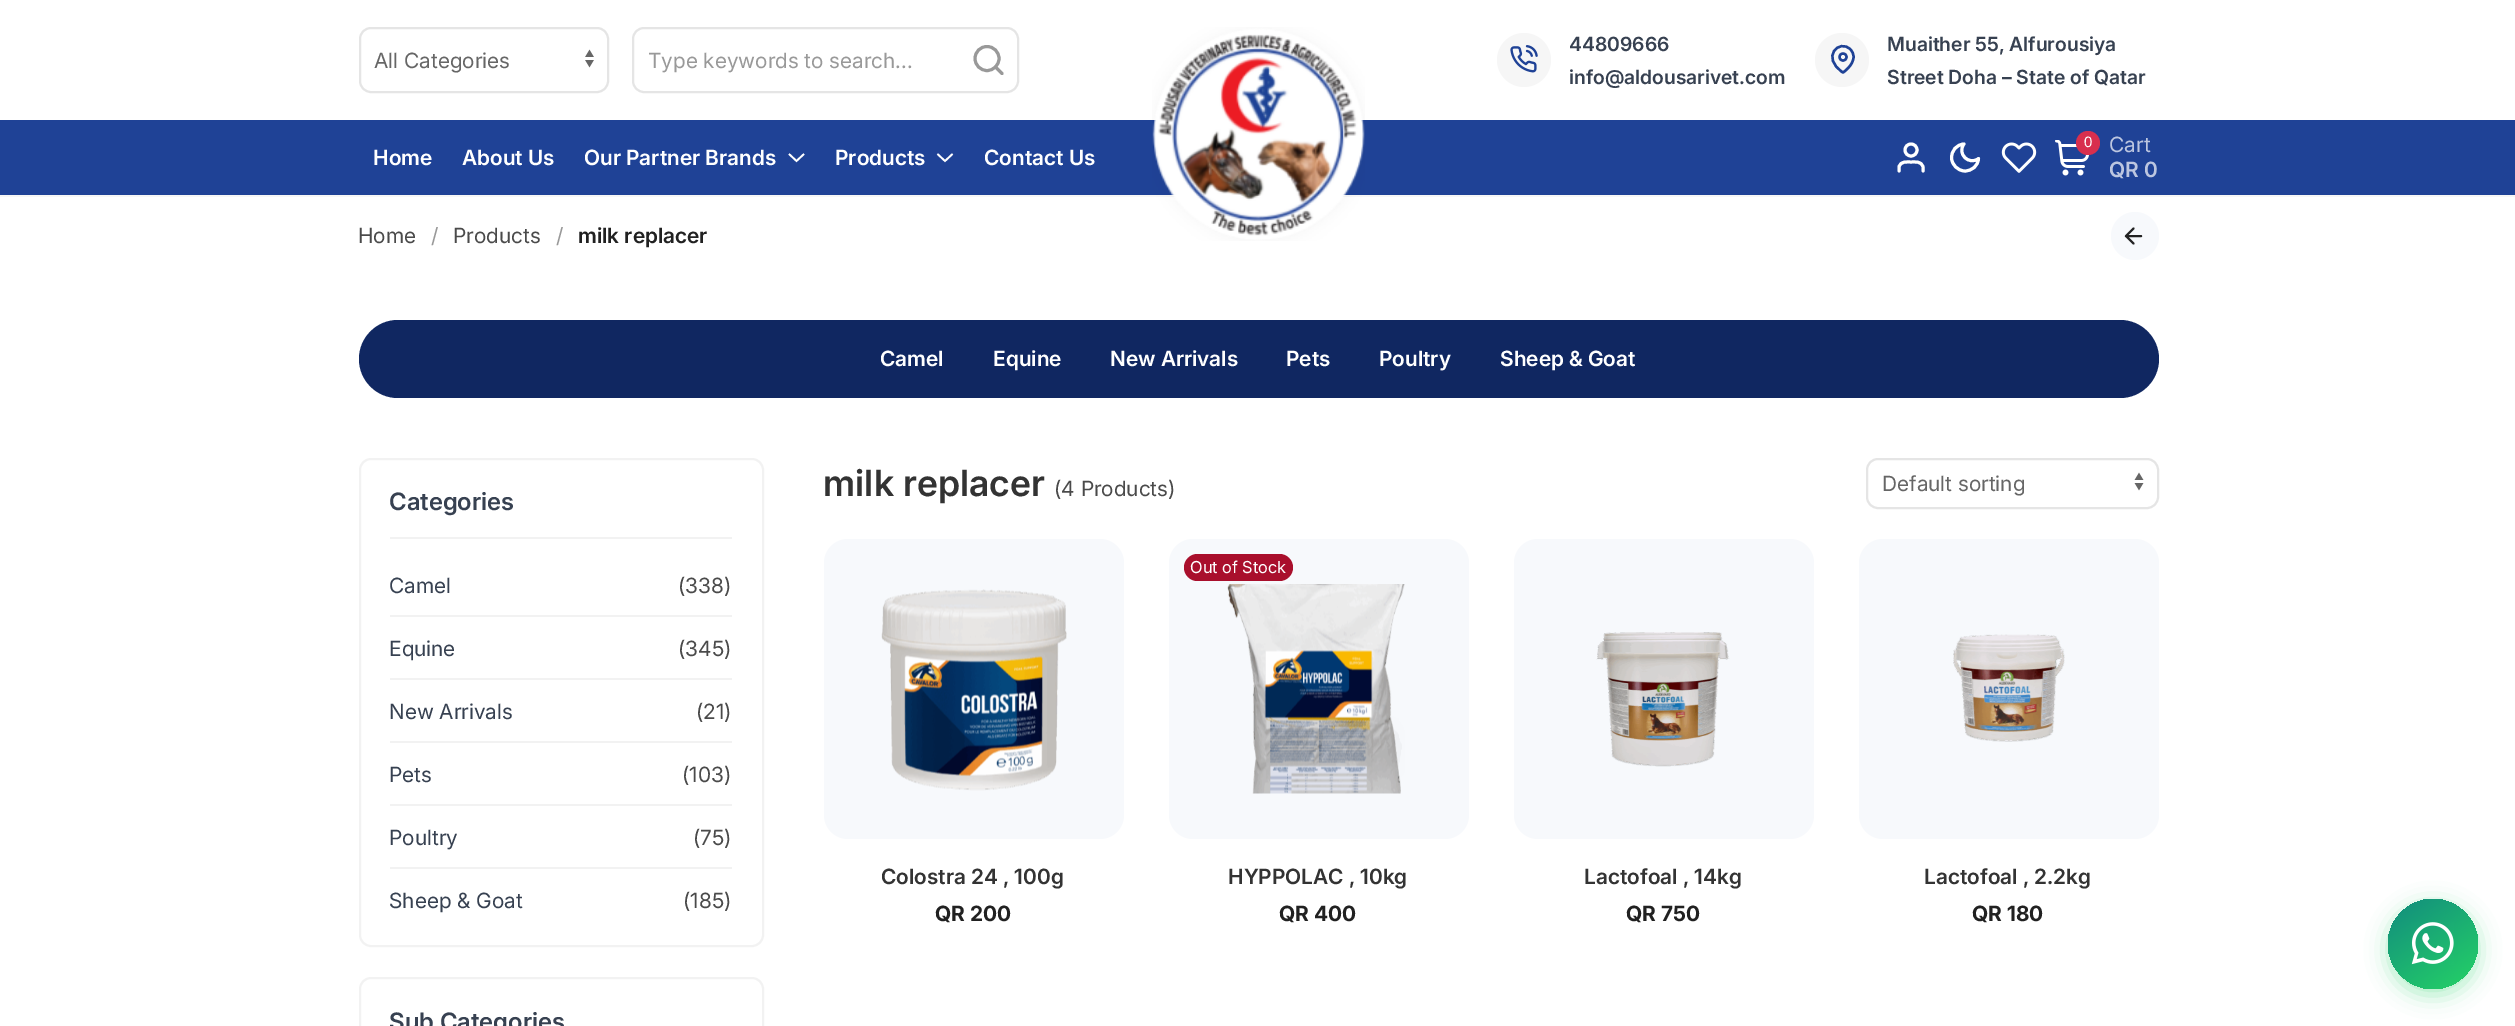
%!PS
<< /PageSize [2515 1026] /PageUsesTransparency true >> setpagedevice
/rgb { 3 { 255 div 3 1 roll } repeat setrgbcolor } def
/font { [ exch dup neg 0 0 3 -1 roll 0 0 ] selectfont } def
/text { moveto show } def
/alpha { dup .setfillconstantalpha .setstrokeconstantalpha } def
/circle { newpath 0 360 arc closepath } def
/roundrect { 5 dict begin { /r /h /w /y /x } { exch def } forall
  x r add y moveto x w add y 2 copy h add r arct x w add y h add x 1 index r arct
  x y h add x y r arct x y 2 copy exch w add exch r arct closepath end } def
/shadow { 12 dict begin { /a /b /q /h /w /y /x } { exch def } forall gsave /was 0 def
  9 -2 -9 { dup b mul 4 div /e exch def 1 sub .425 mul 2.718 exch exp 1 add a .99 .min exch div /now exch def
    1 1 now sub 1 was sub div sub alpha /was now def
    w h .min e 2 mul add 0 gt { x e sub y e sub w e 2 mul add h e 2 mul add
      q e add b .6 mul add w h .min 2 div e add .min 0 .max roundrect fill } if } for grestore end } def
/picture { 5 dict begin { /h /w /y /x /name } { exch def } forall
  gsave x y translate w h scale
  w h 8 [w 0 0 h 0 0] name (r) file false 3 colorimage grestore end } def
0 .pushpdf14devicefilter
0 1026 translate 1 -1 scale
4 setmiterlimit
255 255 255 rgb
0 0 2515 1026 rectfill
(img_01.rgb) 585 49 9 19 picture
229 229 229 rgb
2 setlinewidth
360 28 248 64 11 roundrect stroke
633 28 385 64 11 roundrect stroke
153 153 153 rgb
3 setlinewidth
987 58.5 12 circle stroke
1 setlinecap
1 setlinejoin
1002 73.5 moveto -6.5 -6.5 rlineto stroke
31 66 150 rgb
0 120 2515 75 rectfill
246 246 246 rgb
0 195 2515 2 rectfill
(img_02.rgb) 1152 27 213 214 picture
1524 60 27 circle fill
(img_03.rgb) 1510 45 28 28 picture
1842 60 27 circle fill
31 66 150 rgb
2.4 setlinewidth
1853.5 57 moveto 0 8.5 -10.5 15.5 -10.5 15.5 rcurveto -23 -15 -3.5 -34.5 7.5 -23 rcurveto 2 2 3 4.5 3 7.5 rcurveto closepath stroke
0 setlinecap
0 setlinejoin
1843 57 3.5 circle stroke
255 255 255 rgb
1.7 setlinewidth
789 154 moveto 7.5 7 rlineto 7.5 -7 rlineto stroke
937.5 154 moveto 7.5 7 rlineto 7.5 -7 rlineto stroke
3 setlinewidth
1911 150 6 circle stroke
1 setlinecap
1 setlinejoin
1923 171 moveto 0 -4 rlineto -1.5 -6 -7.5 -5 -12 -5 rcurveto -4.5 0 -10.5 -1 -12 5 rcurveto 0 4 rlineto stroke
1978.5 158.5 moveto -0.5 7.5 -6.5 12.5 -14 12.5 rcurveto -7 -0.5 -12.5 -6 -13 -13 rcurveto 0 -7.5 5 -13.5 12.5 -14 rcurveto -7.5 9.5 5 22 14.5 14.5 rcurveto closepath stroke
(img_04.rgb) 2001 142 36 31 picture
(img_05.rgb) 2055 140 35 36 picture
216 47 78 rgb
2088 143 12 circle fill
247 249 252 rgb
2135 236 24 circle fill
34 34 34 rgb
2.1 setlinewidth
2141 236 moveto -15 0 rlineto 2133.5 243.5 moveto -7.5 -7.5 rlineto 7.5 -7.5 rlineto stroke
16 39 97 rgb
359 320 1800 78 39 roundrect fill
242 242 242 rgb
2 setlinewidth
0 setlinecap
0 setlinejoin
360 459 403 487 11 roundrect stroke
390 537 342 2 rectfill
390 615 342 2 rectfill
390 678 342 2 rectfill
390 741 342 2 rectfill
390 804 342 2 rectfill
390 867 342 2 rectfill
360 978 403 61 11 roundrect stroke
(img_06.rgb) 2134 472 10 19 picture
229 229 229 rgb
1867 459 291 49 11 roundrect stroke
247 249 252 rgb
824 539 300 300 24 roundrect fill
(img_07.rgb) 881 589 186 202 picture
1169 539 300 300 24 roundrect fill
(img_08.rgb) 1227 584 178 210 picture
169 15 44 rgb
1184 554 109 27 13.5 roundrect fill
247 249 252 rgb
1514 539 300 300 24 roundrect fill
(img_09.rgb) 1596 632 134 135 picture
1859 539 300 300 24 roundrect fill
(img_10.rgb) 1953 634 112 108 picture
37 211 102 rgb
2388 905 90 90 45 11 0.4 shadow
gsave 2433 944 45 circle clip newpath
<< /ShadingType 2 /ColorSpace /DeviceRGB /Coords [2397 892 2469 995] /Extend [true true] /Function << /FunctionType 2 /Domain [0 1] /C0 [0.071 0.549 0.494] /C1 [0.145 0.827 0.4] /N 1 >> >> shfill grestore
(img_11.rgb) 2411 922 43 43 picture
/Inter-Regular 21 font
102 102 102 rgb
(All Categories) 374 68 text
153 153 153 rgb
(Type keywords to search...) 648 68 text
/Inter-SemiBold 19.5 font
55 65 81 rgb
(44809666) 1569 51 text
(info@aldousarivet.com) 1569 84 text
(Muaither 55, Alfurousiya) 1887 51 text
(Street Doha – State of Qatar) 1887 84 text
/Inter-SemiBold 21 font
255 255 255 rgb
(Home) 373 165 text
(About Us) 462 165 text
(Our Partner Brands) 584 165 text
(Products) 835 165 text
(Contact Us) 984 165 text
/LiberationSans-Regular 15 font
(0) 2084 147 text
/Inter-Regular 21 font
188 198 224 rgb
(Cart) 2109 152 text
/Inter-SemiBold 21 font
(QR 0) 2109 177 text
/Inter-Regular 21 font
74 74 74 rgb
(Home) 358 243 text
153 153 153 rgb
(/) 431 243 text
74 74 74 rgb
(Products) 453 243 text
153 153 153 rgb
(/) 556 243 text
/Inter-SemiBold 21 font
33 33 33 rgb
(milk replacer) 578 243 text
255 255 255 rgb
(Camel) 880 366 text
(Equine) 993 366 text
(New Arrivals) 1110 366 text
(Pets) 1286 366 text
(Poultry) 1379 366 text
(Sheep & Goat) 1500 366 text
/Inter-SemiBold 24 font
55 65 81 rgb
(Categories) 389 510 text
/Inter-Regular 21 font
(Camel) 389 593 text
74 74 74 rgb
(\(338\)) 678 593 text
55 65 81 rgb
(Equine) 389 656 text
74 74 74 rgb
(\(345\)) 678 656 text
55 65 81 rgb
(New Arrivals) 389 719 text
74 74 74 rgb
(\(21\)) 696 719 text
55 65 81 rgb
(Pets) 389 782 text
74 74 74 rgb
(\(103\)) 682 782 text
55 65 81 rgb
(Poultry) 389 845 text
74 74 74 rgb
(\(75\)) 693 845 text
55 65 81 rgb
(Sheep & Goat) 389 908 text
74 74 74 rgb
(\(185\)) 683 908 text
/Inter-SemiBold 24 font
55 65 81 rgb
(Sub Categories) 389 1030 text
/Inter-SemiBold 36 font
51 51 51 rgb
(milk replacer) 823 496 text
/Inter-Regular 21 font
74 74 74 rgb
(\(4 Products\)) 1054 496 text
102 102 102 rgb
(Default sorting) 1882 491 text
/Inter-SemiBold 21 font
51 51 51 rgb
(Colostra 24 , 100g) 881 884 text
/Inter-Bold 21 font
33 33 33 rgb
(QR 200) 935 921 text
/Inter-Regular 16.5 font
255 255 255 rgb
(Out of Stock) 1190 573 text
/Inter-SemiBold 21 font
51 51 51 rgb
(HYPPOLAC , 10kg) 1228 884 text
/Inter-Bold 21 font
33 33 33 rgb
(QR 400) 1279 921 text
/Inter-SemiBold 21 font
51 51 51 rgb
(Lactofoal , 14kg) 1584 884 text
/Inter-Bold 21 font
33 33 33 rgb
(QR 750) 1626 921 text
/Inter-SemiBold 21 font
51 51 51 rgb
(Lactofoal , 2.2kg) 1924 884 text
/Inter-Bold 21 font
33 33 33 rgb
(QR 180) 1972 921 text
.poppdf14devicefilter showpage
